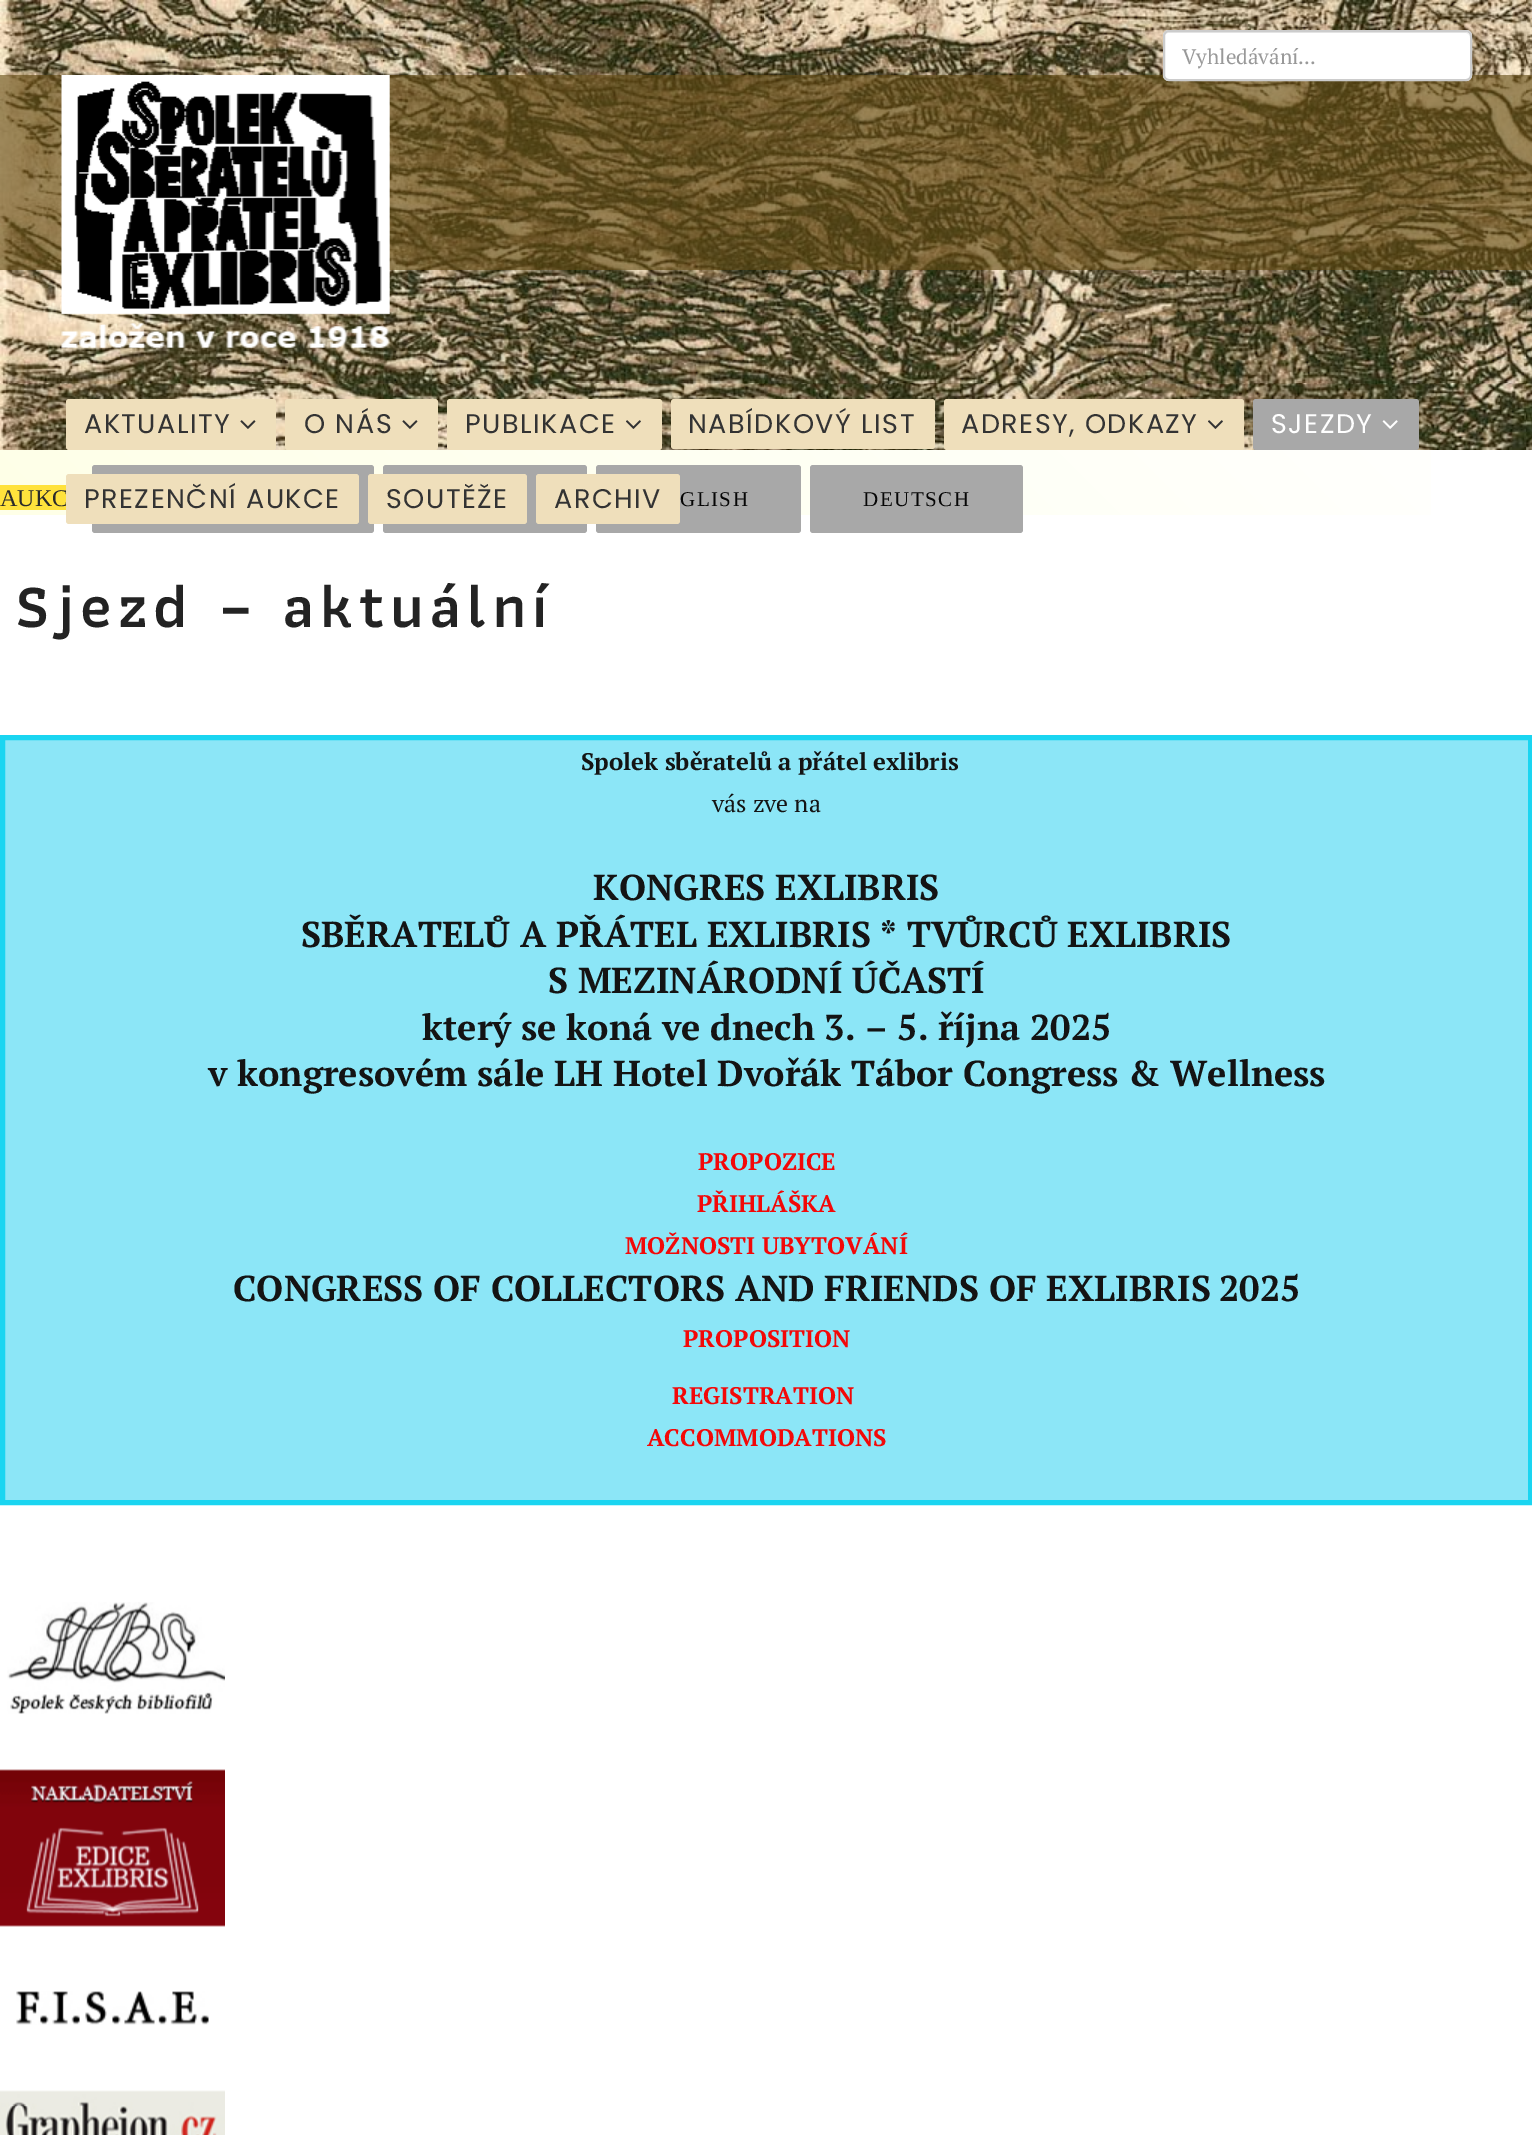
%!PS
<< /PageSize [1532 2135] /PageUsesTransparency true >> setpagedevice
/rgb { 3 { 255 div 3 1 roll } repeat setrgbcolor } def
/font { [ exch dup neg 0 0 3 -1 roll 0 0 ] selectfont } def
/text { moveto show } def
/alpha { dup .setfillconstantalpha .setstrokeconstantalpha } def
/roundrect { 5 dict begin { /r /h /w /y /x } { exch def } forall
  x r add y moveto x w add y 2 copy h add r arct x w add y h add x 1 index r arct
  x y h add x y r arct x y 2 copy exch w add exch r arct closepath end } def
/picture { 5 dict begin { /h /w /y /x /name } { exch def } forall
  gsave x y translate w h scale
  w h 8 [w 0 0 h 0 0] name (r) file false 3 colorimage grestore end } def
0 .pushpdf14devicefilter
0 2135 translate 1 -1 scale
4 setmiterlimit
255 255 255 rgb
0 0 1532 2135 rectfill
(img_05.rgb) 0 0 1532 450 picture
0.62 alpha
99 75 20 rgb
0 75 1532 195 rectfill
1 alpha
255 255 255 rgb
1163 30 309 51 6 roundrect fill
236 236 236 rgb
1168 33 moveto 298 0 rlineto 2 0 4 2 4 5 rcurveto 0 -3 -2 -6 -5 -6 rcurveto -296 0 rlineto -3 0 -5 3 -5 6 rcurveto 0 -3 2 -5 4 -5 rcurveto closepath fill
204 204 204 rgb
2 setlinewidth
1164 31 307 49 5 roundrect stroke
(img_01.rgb) 61 75 329 273 picture
239 223 187 rgb
66 399 210 51 3 roundrect fill
(img_02.rgb) 240 420 16 9 picture
285 399 153 51 3 roundrect fill
(img_02.rgb) 402 420 16 9 picture
447 399 215 51 3 roundrect fill
(img_03.rgb) 626 420 15 9 picture
671 399 264 50 3 roundrect fill
944 399 300 51 3 roundrect fill
(img_03.rgb) 1208 420 15 9 picture
168 168 168 rgb
1253 399 166 51 3 roundrect fill
(img_04.rgb) 1382 420 16 9 picture
gsave 0 450 moveto 1431 0 rlineto 0 65 rlineto -1431 0 rlineto closepath clip newpath
<< /ShadingType 2 /ColorSpace /DeviceRGB /Coords [367 882 1166 83] /Extend [true true] /Function << /FunctionType 2 /Domain [0 1] /C0 [0.996 1 0.906] /C1 [1 1 1] /N 1 >> >> shfill grestore
92 465 282 68 3 roundrect fill
383 465 204 68 3 roundrect fill
239 223 187 rgb
368 474 159 50 3 roundrect fill
168 168 168 rgb
596 465 205 68 3 roundrect fill
239 223 187 rgb
536 474 144 50 3 roundrect fill
255 226 60 rgb
0 485 66 25 rectfill
168 168 168 rgb
810 465 213 68 3 roundrect fill
140 230 247 rgb
2.5 737.5 moveto 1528 0 rlineto 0 765 rlineto -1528 0 rlineto closepath gsave fill grestore
26 213 241 rgb
5 setlinewidth
stroke
(img_06.rgb) 7 1602 218 112 picture
(img_07.rgb) 0 1769 225 158 picture
(img_08.rgb) 16 1991 193 34 picture
(img_09.rgb) 0 2090 225 45 picture
/PTSerif-Regular 21 font
153 153 153 rgb
(Vyhledávání...) 1182 64 text
/Poppins-Regular 27 font
51 51 51 rgb
84 433 moveto 1.5 0 (AKTUALITY) ashow
304 433 moveto 1.5 0 (O NÁS) ashow
465 433 moveto 1.5 0 (PUBLIKACE) ashow
688 433 moveto 1.5 0 (NABÍDKOVÝ LIST) ashow
961 433 moveto 1.5 0 (ADRESY, ODKAZY) ashow
255 255 255 rgb
1271 433 moveto 1.5 0 (SJEZDY) ashow
51 51 51 rgb
386 508 moveto 1.5 0 (SOUTĚŽE) ashow
554 508 moveto 1.5 0 (ARCHIV) ashow
/LiberationSerif-Regular 24 font
43 43 43 rgb
(AUKC) 0 506 text
239 223 187 rgb
66 474 293 50 3 roundrect fill
/Poppins-Regular 27 font
51 51 51 rgb
84 508 moveto 1.5 0 (PREZENČNÍ AUKCE) ashow
/LiberationSerif-Regular 21 font
6 6 6 rgb
680 506 moveto 1.5 0 (GLISH) ashow
863 506 moveto 1.5 0 (DEUTSCH) ashow
/Athiti-SemiBold 63 font
35 35 35 rgb
15 627 moveto 6 0 (Sjezd – aktuální) ashow
/PTSerif-Bold 24 font
20 20 20 rgb
(Spolek sběratelů a přátel exlibris) 581 770 text
/PTSerif-Regular 24 font
(vás zve na) 712 812 text
/PTSerif-Bold 36 font
(KONGRES EXLIBRIS) 593 900 text
(SBĚRATELŮ A PŘÁTEL EXLIBRIS * TVŮRCŮ EXLIBRIS) 301 947 text
(S MEZINÁRODNÍ ÚČASTÍ) 548 993 text
(který se koná ve dnech 3. – 5. října 2025) 422 1040 text
(v kongresovém sále LH Hotel Dvořák Tábor Congress & Wellness) 208 1086 text
/PTSerif-Bold 24 font
243 8 8 rgb
(PROPOZICE) 698 1170 text
(PŘIHLÁŠKA) 697 1212 text
(MOŽNOSTI UBYTOVÁNÍ) 625 1254 text
/PTSerif-Bold 36 font
20 20 20 rgb
(CONGRESS OF COLLECTORS AND FRIENDS OF EXLIBRIS) 233 1301 text
(2025) 1219 1301 text
/PTSerif-Bold 24 font
243 8 8 rgb
(PROPOSITION) 683 1347 text
(REGISTRATION) 672 1404 text
(ACCOMMODATIONS) 647 1446 text
.poppdf14devicefilter showpage
